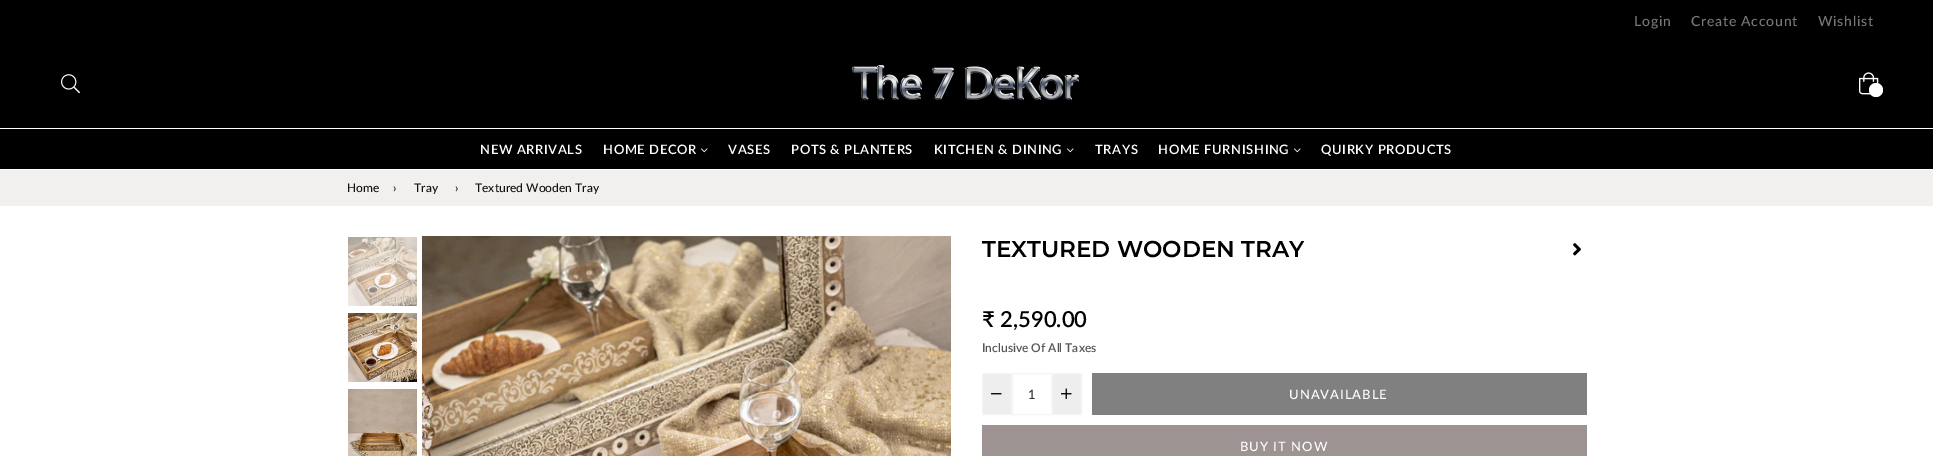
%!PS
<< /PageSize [1933 456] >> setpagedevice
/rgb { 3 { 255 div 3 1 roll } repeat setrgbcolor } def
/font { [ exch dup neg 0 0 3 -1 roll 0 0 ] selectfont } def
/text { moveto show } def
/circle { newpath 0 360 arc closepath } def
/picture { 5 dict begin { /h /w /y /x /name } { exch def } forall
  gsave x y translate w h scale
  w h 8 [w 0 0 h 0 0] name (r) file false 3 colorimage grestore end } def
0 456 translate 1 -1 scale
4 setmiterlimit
255 255 255 rgb
0 0 1933 456 rectfill
0 0 0 rgb
0 0 1933 128 rectfill
(img_01.rgb) 61 74 19 20 picture
(img_02.rgb) 851 65 228 36 picture
(img_03.rgb) 1859 72 20 23 picture
255 255 255 rgb
1876 90 7 circle fill
0 0 0 rgb
0 129 1933 40 rectfill
(img_04.rgb) 701 148 7 5 picture
(img_04.rgb) 1067 148 7 5 picture
(img_04.rgb) 1294 148 7 5 picture
242 239 239 rgb
0 170 1933 36 rectfill
(img_05.rgb) 348 237 69 69 picture
(img_06.rgb) 348 313 69 69 picture
(img_07.rgb) 348 389 69 67 picture
(img_08.rgb) 422 236 529 220 picture
(img_09.rgb) 1573 243 8 13 picture
238 238 238 rgb
982.5 373.5 moveto 29 0 rlineto 0 41 rlineto -29 0 rlineto closepath gsave fill grestore
245 245 245 rgb
stroke
(img_10.rgb) 991 393 11 2 picture
1012.5 373.5 39 41 rectstroke
238 238 238 rgb
1052.5 373.5 moveto 29 0 rlineto 0 41 rlineto -29 0 rlineto closepath gsave fill grestore
245 245 245 rgb
stroke
(img_11.rgb) 1061 388 11 11 picture
128 128 128 rgb
1092 373 495 42 rectfill
156 147 146 rgb
982 425 605 31 rectfill
/Lato-Medium 14 font
123 117 117 rgb
1634 26 moveto 0.75 0 (Login) ashow
1691 26 moveto 0.75 0 (Create Account) ashow
1818 26 moveto 0.75 0 (Wishlist) ashow
/Lato-SemiBold 13 font
255 255 255 rgb
480 154 moveto 0.6 0 (NEW ARRIVALS) ashow
603 154 moveto 0.6 0 (HOME DECOR) ashow
728 154 moveto 0.6 0 (VASES) ashow
791 154 moveto 0.6 0 (POTS & PLANTERS) ashow
934 154 moveto 0.6 0 (KITCHEN & DINING) ashow
1095 154 moveto 0.6 0 (TRAYS) ashow
1158 154 moveto 0.6 0 (HOME FURNISHING) ashow
1321 154 moveto 0.6 0 (QUIRKY PRODUCTS) ashow
/Lato-Medium 12 font
17 17 17 rgb
(Home) 347 192 text
(›) 393 192 text
(Tray) 414 192 text
(›) 455 192 text
(Textured Wooden Tray) 475 192 text
/Montserrat-SemiBold 23 font
0 0 0 rgb
(TEXTURED WOODEN TRAY) 982 257 text
/Lato-SemiBold 22 font
(₹ 2,590.00) 982 327 text
/Lato-SemiBold 12 font
85 85 85 rgb
(Inclusive Of All Taxes) 982 352 text
/Lato-Medium 13 font
51 51 51 rgb
(1) 1028 399 text
255 255 255 rgb
1289 399 moveto 1 0 (UNAVAILABLE) ashow
1240 451 moveto 1 0 (BUY IT NOW) ashow
showpage
